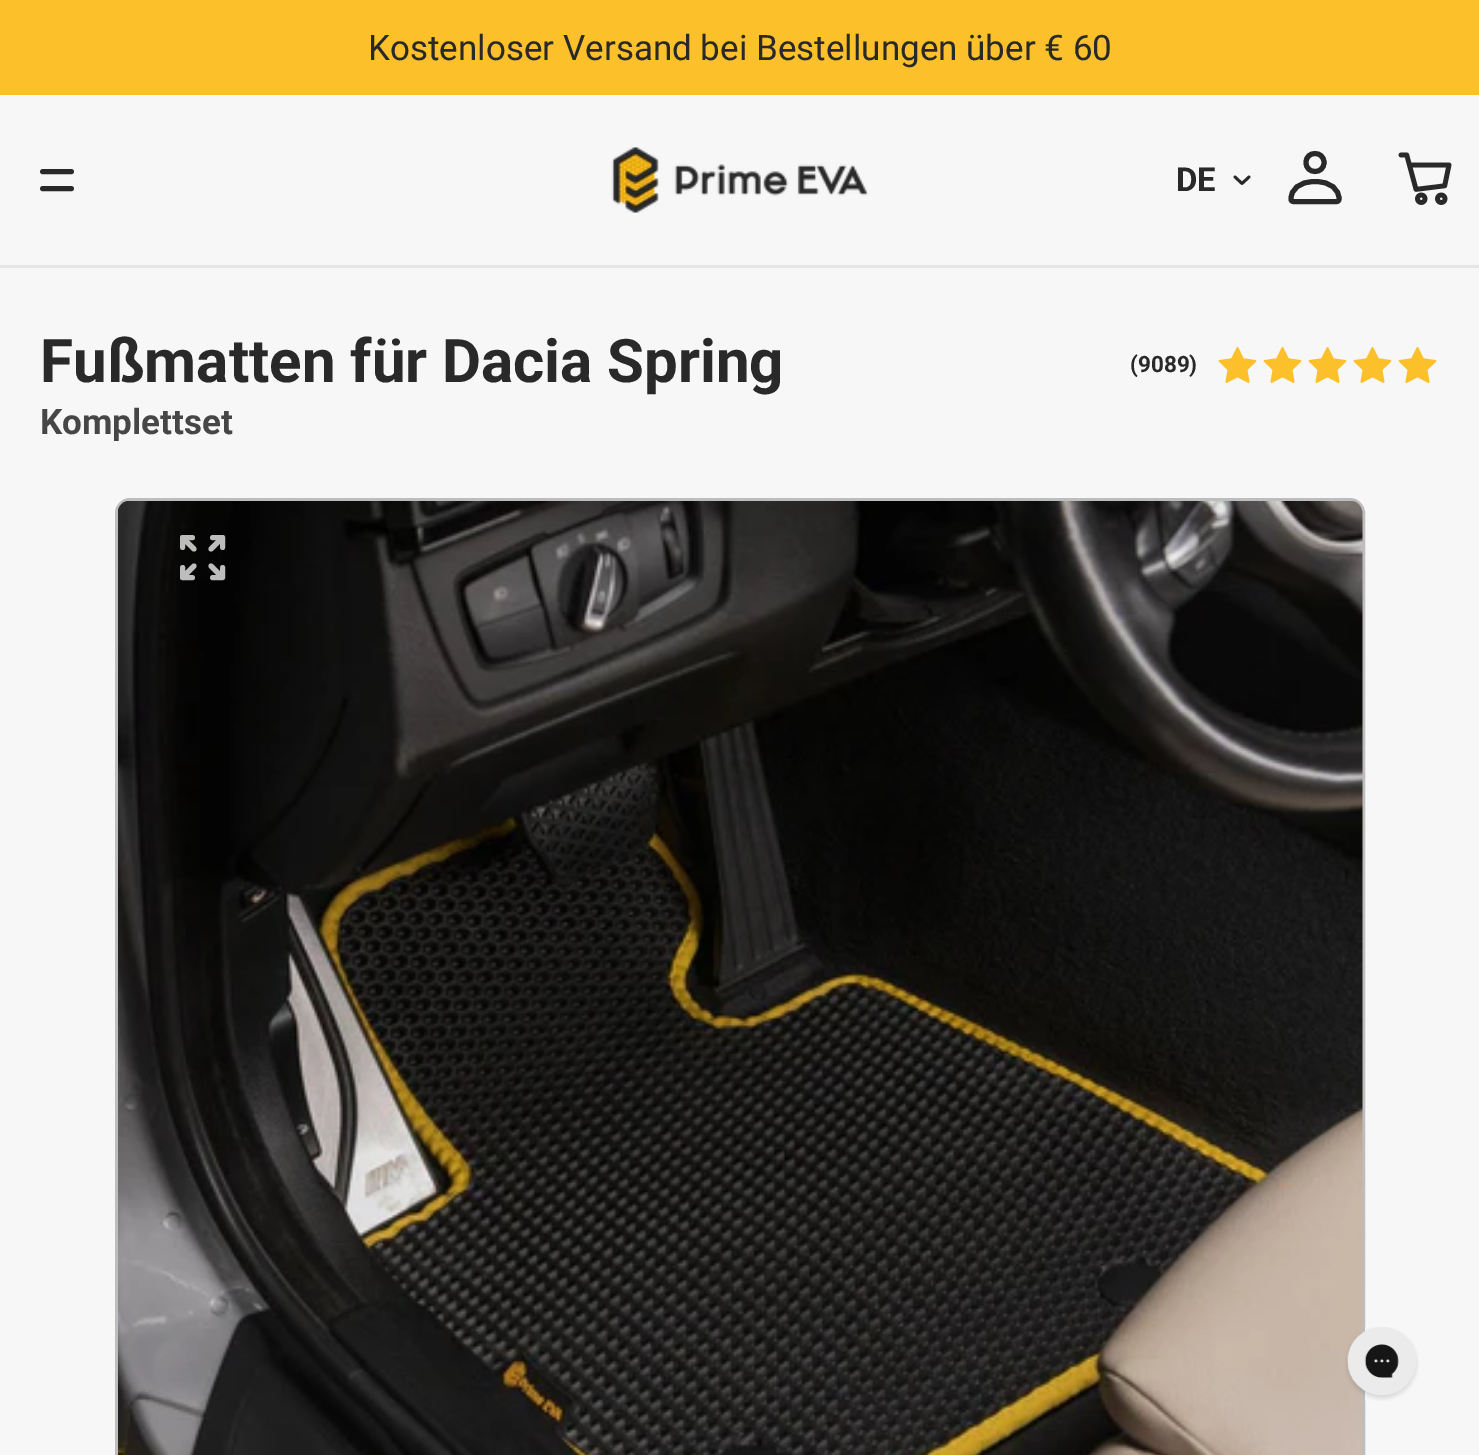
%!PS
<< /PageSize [1479 1455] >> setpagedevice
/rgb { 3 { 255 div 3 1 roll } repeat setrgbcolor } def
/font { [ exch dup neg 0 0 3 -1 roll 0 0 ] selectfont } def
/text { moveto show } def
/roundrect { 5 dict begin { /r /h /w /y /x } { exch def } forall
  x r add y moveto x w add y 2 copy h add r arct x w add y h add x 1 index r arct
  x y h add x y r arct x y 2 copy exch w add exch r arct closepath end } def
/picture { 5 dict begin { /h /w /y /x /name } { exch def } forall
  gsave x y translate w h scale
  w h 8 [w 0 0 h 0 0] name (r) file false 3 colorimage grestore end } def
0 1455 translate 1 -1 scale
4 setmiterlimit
247 247 247 rgb
0 0 1479 1455 rectfill
252 192 43 rgb
0 0 1479 95 rectfill
229 229 229 rgb
0 265 1479 3 rectfill
41 41 41 rgb
4.9 setlinewidth
1 setlinecap
42.5 171.5 moveto 29 0 rlineto 42.5 188.5 moveto 29 0 rlineto stroke
(img_01.rgb) 611 147 258 66 picture
2.8 setlinewidth
1 setlinejoin
1235 177 moveto 7 6.5 rlineto 7 -6.5 rlineto stroke
5 setlinewidth
0 setlinecap
0 setlinejoin
1291 199 moveto 0 -9.5 8 -17.5 24 -17.5 rcurveto 16 0 24 8 24 17.5 rcurveto 0 1.5 -1 2.5 -2.5 2.5 rcurveto -43 0 rlineto -1.5 0 -2.5 -1 -2.5 -2.5 rcurveto closepath 1324 162.5 moveto 0 12 -18 12 -18 0 rcurveto 0 -12 18 -12 18 0 rcurveto closepath stroke
(img_02.rgb) 1398 152 54 53 picture
(img_03.rgb) 1218 347 39 36 picture
(img_03.rgb) 1263 347 39 36 picture
(img_03.rgb) 1308 347 39 36 picture
(img_03.rgb) 1353 347 39 36 picture
(img_03.rgb) 1398 347 39 36 picture
189 189 189 rgb
3 setlinewidth
116.5 499.5 1247 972 13.5 roundrect stroke
(img_04.rgb) 118 501 1245 954 picture
5 setlinewidth
1 setlinecap
1 setlinejoin
192.5 577.5 moveto -10 0 rlineto 182.5 577.5 moveto 0 -10 rlineto 182.5 577.5 moveto 11.5 -11.5 rlineto 212.5 537.5 moveto 10 0 rlineto 222.5 537.5 moveto 0 10 rlineto 222.5 537.5 moveto -11.5 11.5 rlineto 182.5 547.5 moveto 0 -10 rlineto 182.5 537.5 moveto 10 0 rlineto 182.5 537.5 moveto 11.5 11.5 rlineto 222.5 567.5 moveto 0 10 rlineto 222.5 577.5 moveto -10 0 rlineto 222.5 577.5 moveto -11.5 -11.5 rlineto stroke
(img_05.rgb) 1345 1327 74 74 picture
/Roboto-Regular 35 font
41 41 41 rgb
(Kostenloser Versand bei Bestellungen über € 60) 368 60 text
/Roboto-Bold 33 font
(DE) 1176 191 text
/Roboto-Bold 60 font
(Fußmatten für Dacia Spring) 40 382 text
/Roboto-Bold 22.5 font
(\(9089\)) 1130 372 text
/Roboto-Bold 35 font
70 70 70 rgb
(Komplettset) 40 434 text
showpage
